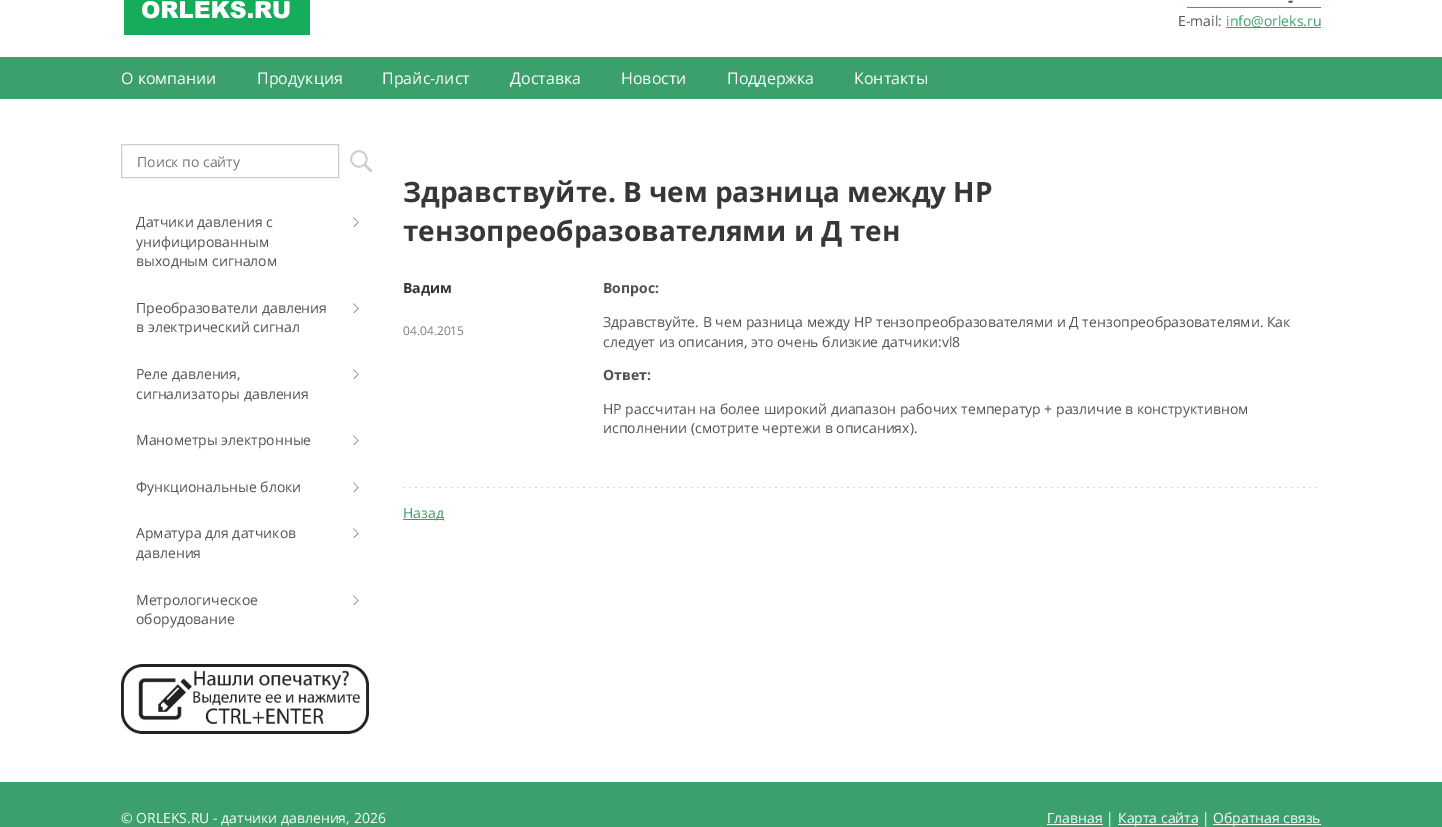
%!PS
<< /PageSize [1442 827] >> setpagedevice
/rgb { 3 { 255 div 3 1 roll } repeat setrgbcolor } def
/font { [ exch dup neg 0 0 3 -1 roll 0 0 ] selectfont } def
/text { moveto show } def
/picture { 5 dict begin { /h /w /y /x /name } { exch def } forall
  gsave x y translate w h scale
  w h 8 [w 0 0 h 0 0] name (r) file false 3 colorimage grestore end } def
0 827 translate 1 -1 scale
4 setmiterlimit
255 255 255 rgb
0 0 1442 827 rectfill
(img_01.rgb) 124 0 186 35 picture
59 160 107 rgb
1187 7 134 1 rectfill
1226 27 95 1 rectfill
0 57 1442 42 rectfill
206 206 206 rgb
121.5 144.5 217 33 rectstroke
(img_02.rgb) 350 150 22 22 picture
(img_03.rgb) 353 217 6 10 picture
(img_03.rgb) 353 303 6 10 picture
(img_03.rgb) 353 369 6 10 picture
(img_03.rgb) 353 435 6 10 picture
(img_03.rgb) 353 482 6 10 picture
(img_03.rgb) 353 528 6 10 picture
(img_03.rgb) 353 595 6 10 picture
(img_04.rgb) 121 664 248 70 picture
(img_05.rgb) 403 487 914 1 picture
59 160 107 rgb
403 519 41 1 rectfill
0 782 1442 45 rectfill
255 255 255 rgb
1047 824 56 1 rectfill
1118 824 80 1 rectfill
1213 824 108 1 rectfill
/OpenSans-Bold 16 font
82 82 82 rgb
(-) 1288 6 text
/OpenSans-Regular 14 font
(E-mail:) 1178 26 text
59 160 107 rgb
(info@orleks.ru) 1226 26 text
/OpenSans-Regular 16 font
255 255 255 rgb
(О компании) 121 84 text
(Продукция) 257 84 text
(Прайс-лист) 382 84 text
(Доставка) 510 84 text
(Новости) 621 84 text
(Поддержка) 727 84 text
(Контакты) 854 84 text
/OpenSans-Regular 14 font
117 117 117 rgb
(Поиск по сайту) 137 167 text
82 82 82 rgb
(Датчики давления с) 136 227 text
(унифицированным) 136 247 text
(выходным сигналом) 136 266 text
(Преобразователи давления) 136 313 text
(в электрический сигнал) 136 332 text
(Реле давления,) 136 379 text
(сигнализаторы давления) 136 399 text
(Манометры электронные) 136 445 text
(Функциональные блоки) 136 492 text
(Арматура для датчиков) 136 538 text
(давления) 136 558 text
(Метрологическое) 136 605 text
(оборудование) 136 624 text
/OpenSans-Bold 28 font
55 55 55 rgb
(Здравствуйте. В чем разница между HP) 403 202 text
(тензопреобразователями и Д тен) 403 241 text
/OpenSans-Bold 14 font
(Вадим) 403 293 text
/OpenSans-Regular 12 font
124 124 124 rgb
(04.04.2015) 403 335 text
/OpenSans-Bold 14 font
82 82 82 rgb
(Вопрос:) 603 293 text
/OpenSans-Regular 14 font
(Здравствуйте. В чем разница между HP тензопреобразователями и Д тензопреобразователями. Как) 603 327 text
(следует из описания, это очень близкие датчики:vl8) 603 347 text
/OpenSans-Bold 14 font
(Ответ:) 603 380 text
/OpenSans-Regular 14 font
(HP рассчитан на более широкий диапазон рабочих температур + различие в конструктивном) 603 414 text
(исполнении \(смотрите чертежи в описаниях\).) 603 433 text
59 160 107 rgb
(Назад) 403 518 text
255 255 255 rgb
(© ORLEKS.RU - датчики давления, 2026) 121 823 text
(Главная |) 1047 823 text
(Карта сайта |) 1118 823 text
(Обратная связь) 1213 823 text
showpage
